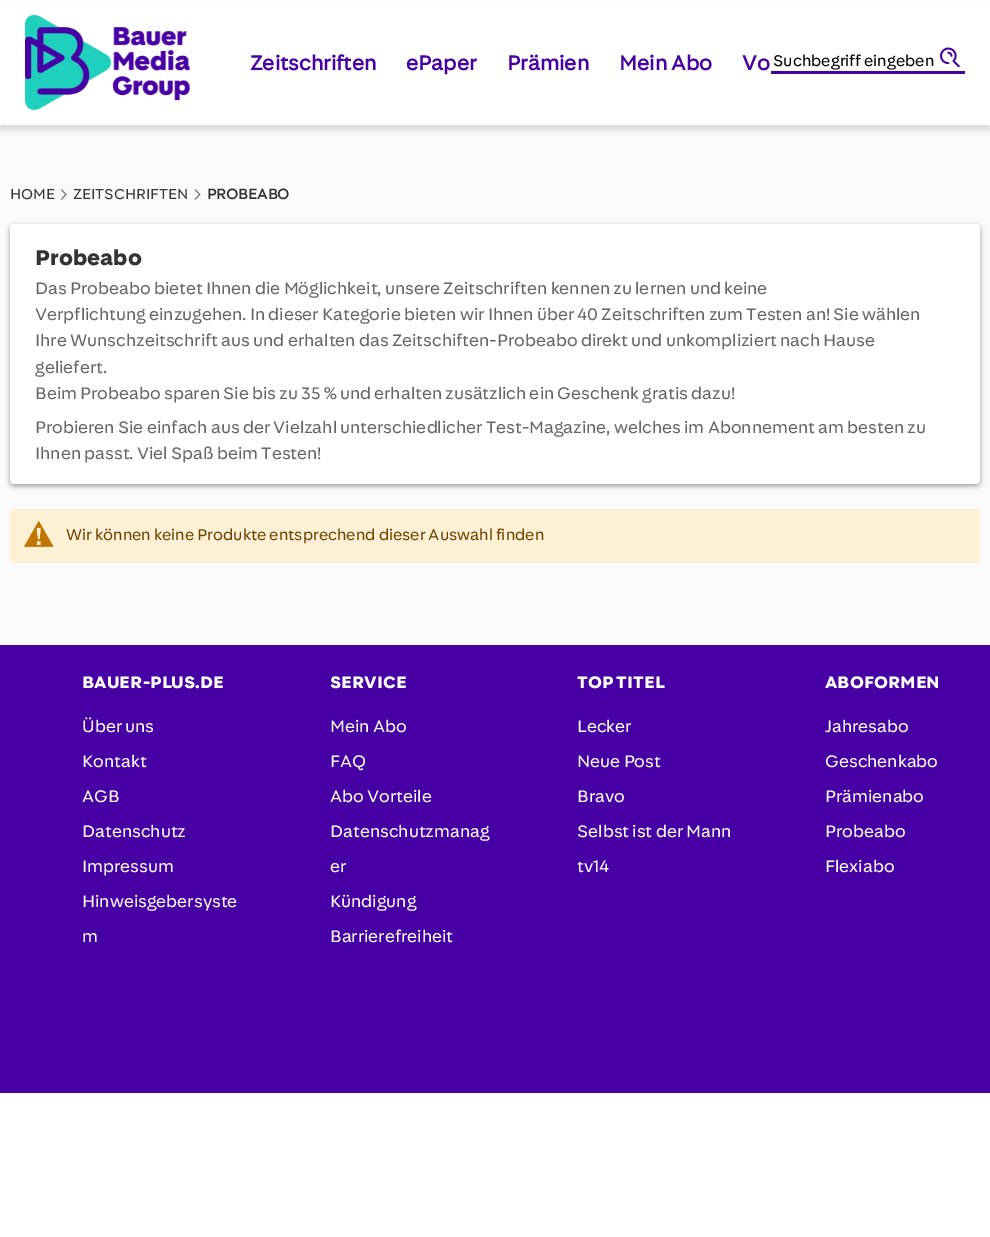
%!PS
<< /PageSize [990 1237] /PageUsesTransparency true >> setpagedevice
/rgb { 3 { 255 div 3 1 roll } repeat setrgbcolor } def
/font { [ exch dup neg 0 0 3 -1 roll 0 0 ] selectfont } def
/text { moveto show } def
/alpha { dup .setfillconstantalpha .setstrokeconstantalpha } def
/roundrect { 5 dict begin { /r /h /w /y /x } { exch def } forall
  x r add y moveto x w add y 2 copy h add r arct x w add y h add x 1 index r arct
  x y h add x y r arct x y 2 copy exch w add exch r arct closepath end } def
/shadow { 12 dict begin { /a /b /q /h /w /y /x } { exch def } forall gsave /was 0 def
  9 -2 -9 { dup b mul 4 div /e exch def 1 sub .425 mul 2.718 exch exp 1 add a .99 .min exch div /now exch def
    1 1 now sub 1 was sub div sub alpha /was now def
    w h .min e 2 mul add 0 gt { x e sub y e sub w e 2 mul add h e 2 mul add
      q e add b .6 mul add w h .min 2 div e add .min 0 .max roundrect fill } if } for grestore end } def
/picture { 5 dict begin { /h /w /y /x /name } { exch def } forall
  gsave x y translate w h scale
  w h 8 [w 0 0 h 0 0] name (r) file false 3 colorimage grestore end } def
0 .pushpdf14devicefilter
0 1237 translate 1 -1 scale
4 setmiterlimit
255 255 255 rgb
0 0 990 1237 rectfill
250 250 250 rgb
0 125 990 520 rectfill
0 0 0 rgb
0 5 990 125 0 2.5 0.12 shadow
255 255 255 rgb
0 2 990 123 rectfill
(img_01.rgb) 25 15 165 95 picture
71 0 163 rgb
771 71 194 3 rectfill
(img_02.rgb) 940 47 20 21 picture
(img_03.rgb) 60 189 7 11 picture
(img_04.rgb) 194 189 7 11 picture
0 0 0 rgb
10 226 970 260 4 2.5 0.35 shadow
255 255 255 rgb
10 224 970 260 4 roundrect fill
253 240 213 rgb
10 509 970 54 rectfill
(img_05.rgb) 23 521 31 26 picture
71 0 163 rgb
0 645 990 448 rectfill
/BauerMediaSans-Bold 21.25 font
(Zeitschriften) 250 70 text
(ePaper) 406 70 text
(Prämien) 507 70 text
(Mein Abo) 619 70 text
(Vo) 742 70 text
/BauerMediaSans-Regular 16.25 font
0 0 0 rgb
(Suchbegriff eingeben) 773 66 text
/BauerMediaSans-Regular 15 font
51 51 51 rgb
(HOME) 10 199 text
(ZEITSCHRIFTEN) 73 199 text
/BauerMediaSans-Bold 15 font
(PROBEABO) 207 199 text
/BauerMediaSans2-Bold 22.5 font
(Probeabo) 35 265 text
/BauerMediaSans-Regular 17.5 font
102 102 102 rgb
(Das Probeabo bietet Ihnen die Möglichkeit, unsere Zeitschriften kennen zu lernen und keine) 35 294 text
(Verpflichtung einzugehen. In dieser Kategorie bieten wir Ihnen über 40 Zeitschriften zum Testen an! Sie wählen) 35 320 text
(Ihre Wunschzeitschrift aus und erhalten das Zeitschiften-Probeabo direkt und unkompliziert nach Hause) 35 346 text
(geliefert.) 35 373 text
(Beim Probeabo sparen Sie bis zu 35 % und erhalten zusätzlich ein Geschenk gratis dazu!) 35 399 text
(Probieren Sie einfach aus der Vielzahl unterschiedlicher Test-Magazine, welches im Abonnement am besten zu) 35 433 text
(Ihnen passt. Viel Spaß beim Testen!) 35 459 text
/BauerMediaSans-Regular 16.25 font
111 68 0 rgb
(Wir können keine Produkte entsprechend dieser Auswahl finden) 66 540 text
/BauerMediaSans2-Bold 17.5 font
255 255 255 rgb
(BAUER-PLUS.DE) 82 688 text
/BauerMediaSans-Regular 17.5 font
(Über uns) 82 732 text
(Kontakt) 82 767 text
(AGB) 82 802 text
(Datenschutz) 82 837 text
(Impressum) 82 872 text
(Hinweisgebersyste) 82 907 text
(m) 82 942 text
/BauerMediaSans2-Bold 17.5 font
(SERVICE) 330 688 text
/BauerMediaSans-Regular 17.5 font
(Mein Abo) 330 732 text
(FAQ) 330 767 text
(Abo Vorteile) 330 802 text
(Datenschutzmanag) 330 837 text
(er) 330 872 text
(Kündigung) 330 907 text
(Barrierefreiheit) 330 942 text
/BauerMediaSans2-Bold 17.5 font
(TOP TITEL) 577 688 text
/BauerMediaSans-Regular 17.5 font
(Lecker) 577 732 text
(Neue Post) 577 767 text
(Bravo) 577 802 text
(Selbst ist der Mann) 577 837 text
(tv14) 577 872 text
/BauerMediaSans2-Bold 17.5 font
(ABOFORMEN) 825 688 text
/BauerMediaSans-Regular 17.5 font
(Jahresabo) 825 732 text
(Geschenkabo) 825 767 text
(Prämienabo) 825 802 text
(Probeabo) 825 837 text
(Flexiabo) 825 872 text
.poppdf14devicefilter showpage
